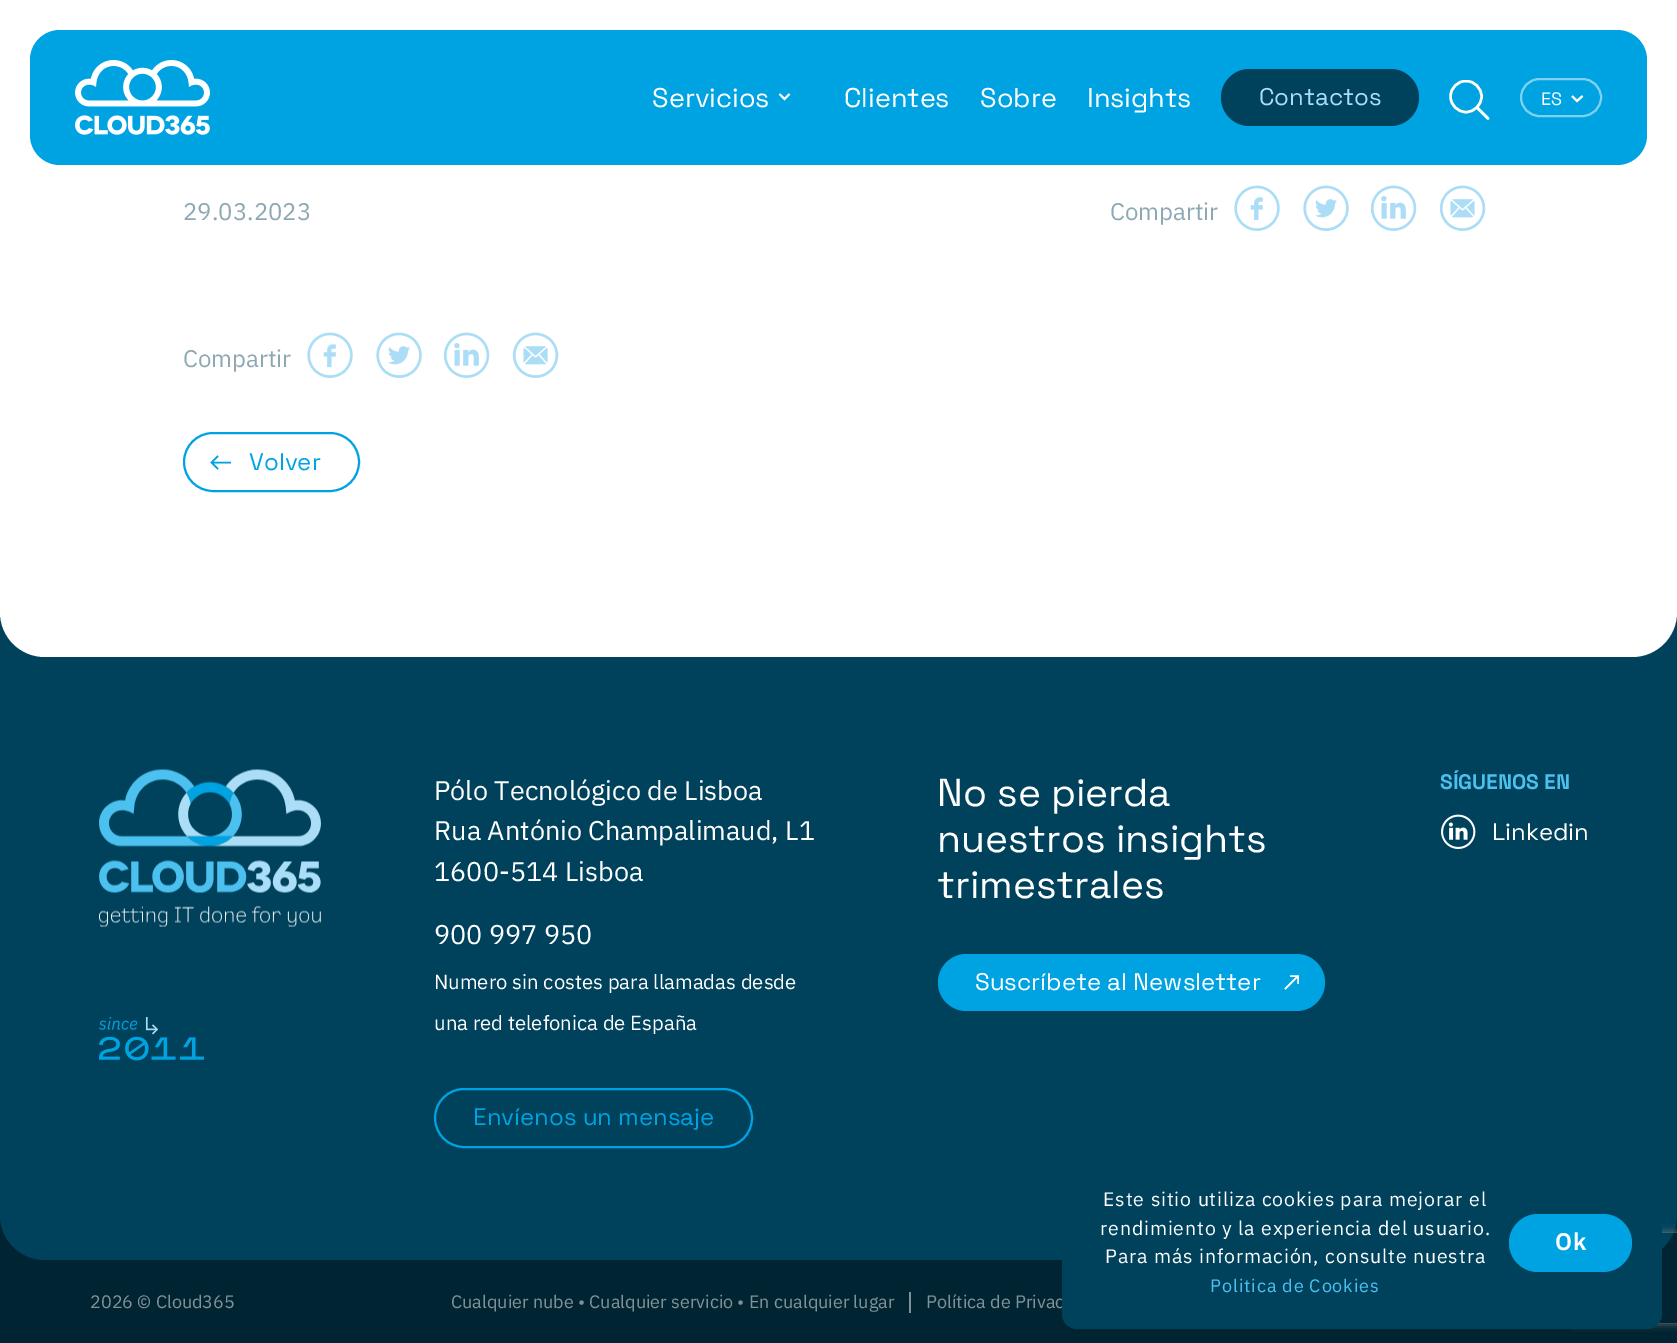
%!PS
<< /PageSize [1677 1343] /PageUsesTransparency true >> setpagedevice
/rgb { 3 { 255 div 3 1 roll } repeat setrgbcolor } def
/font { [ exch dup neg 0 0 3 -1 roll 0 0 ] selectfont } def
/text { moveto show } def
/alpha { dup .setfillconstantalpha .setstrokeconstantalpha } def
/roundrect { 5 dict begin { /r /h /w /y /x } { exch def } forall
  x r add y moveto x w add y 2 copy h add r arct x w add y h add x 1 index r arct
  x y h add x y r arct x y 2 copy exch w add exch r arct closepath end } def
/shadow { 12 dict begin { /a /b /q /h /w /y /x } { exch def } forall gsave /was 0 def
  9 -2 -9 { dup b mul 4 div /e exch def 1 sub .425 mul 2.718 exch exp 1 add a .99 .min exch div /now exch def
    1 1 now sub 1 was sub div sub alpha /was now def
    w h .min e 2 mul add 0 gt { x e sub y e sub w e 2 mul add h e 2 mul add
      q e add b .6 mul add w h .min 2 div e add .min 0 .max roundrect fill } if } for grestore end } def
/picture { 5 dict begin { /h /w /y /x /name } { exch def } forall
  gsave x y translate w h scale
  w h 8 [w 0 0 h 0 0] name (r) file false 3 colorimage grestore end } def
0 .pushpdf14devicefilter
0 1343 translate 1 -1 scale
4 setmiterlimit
0 66 92 rgb
0 0 1677 1343 rectfill
0 36 50 rgb
0 1215 1677 128 rectfill
0 66 92 rgb
0 620 moveto 1677 0 rlineto 0 595 rlineto 0 25 -20 45 -45 45 rcurveto -1587 0 rlineto -25 0 -45 -20 -45 -45 rcurveto closepath fill
255 255 255 rgb
0 -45 moveto 1677 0 rlineto 0 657 rlineto 0 25 -20 45 -45 45 rcurveto -1587 0 rlineto -25 0 -45 -20 -45 -45 rcurveto closepath fill
0 163 226 rgb
30 30 1617 135 30 roundrect fill
(img_01.rgb) 75 60 135 75 picture
255 255 255 rgb
1.8 setlinewidth
779.5 94 moveto 5 5 rlineto 5 -5 rlineto stroke
0 66 92 rgb
1221 69 198 57 28.5 roundrect fill
gsave
1449 80 41 40 rectclip
255 255 255 rgb
2.5 setlinewidth
1 setlinecap
1 setlinejoin
1466 112 moveto 8.5 0 15.5 -7 15.5 -15.5 rcurveto 0 -8.5 -7 -15.5 -15.5 -15.5 rcurveto -8.5 0 -15.5 7 -15.5 15.5 rcurveto 0 8.5 7 15.5 15.5 15.5 rcurveto closepath stroke
grestore
255 255 255 rgb
2.5 setlinewidth
1 setlinecap
1 setlinejoin
1488 118.5 moveto -11 -11 rlineto stroke
2 setlinewidth
0 setlinecap
0 setlinejoin
1572 96 moveto 5 5 rlineto 5.5 -5 rlineto stroke
128 209 241 rgb
1521 79 80 37 18.5 roundrect stroke
(img_02.rgb) 1234 185 46 46 picture
(img_03.rgb) 1303 185 46 46 picture
(img_04.rgb) 1370 185 47 46 picture
(img_05.rgb) 1439 185 47 46 picture
(img_02.rgb) 307 332 46 46 picture
(img_03.rgb) 376 332 46 46 picture
(img_04.rgb) 443 332 47 46 picture
(img_05.rgb) 512 332 47 46 picture
0 163 226 rgb
1.6 setlinewidth
218 456 moveto -6.5 6.5 rlineto 6.5 6.5 rlineto 211.5 462.5 moveto 19.5 0 rlineto stroke
2 setlinewidth
184 433 175 58 29 roundrect stroke
(img_06.rgb) 99 769 222 158 picture
(img_07.rgb) 99 1017 105 44 picture
435 1089 317 58 29 roundrect stroke
938 954 387 57 28.5 roundrect fill
255 255 255 rgb
1.5 setlinewidth
1297.5 976.5 moveto -12.5 12.5 rlineto 1298 984 moveto 0 -8 rlineto -8 0 rlineto stroke
(img_08.rgb) 1441 814 35 35 picture
128 146 153 rgb
909 1292 2 21 rectfill
gsave
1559 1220 moveto 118 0 rlineto 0 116 rlineto -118 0 rlineto closepath 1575 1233 moveto 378 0 rlineto 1.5 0 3 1.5 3 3 rcurveto 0 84 rlineto 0 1.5 -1.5 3 -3 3 rcurveto -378 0 rlineto -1.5 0 -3 -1.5 -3 -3 rcurveto 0 -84 rlineto 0 -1.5 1.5 -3 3 -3 rcurveto closepath eoclip newpath
128 128 128 rgb
1572 1233 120 90 3 4 1 shadow
grestore
/SpaceGrotesk-Regular 27 font
255 255 255 rgb
(Servicios) 652 107 text
(Clientes) 844 107 text
(Sobre) 980 107 text
(Insights) 1087 107 text
/SpaceGrotesk-Regular 24 font
171 221 247 rgb
(Contactos) 1259 105 text
/SpaceGrotesk-Regular 18 font
255 255 255 rgb
(ES) 1541 105 text
/IBMPlexSans-Regular 24 font
142 168 179 rgb
(29.03.2023) 183 220 text
(Compartir) 1110 220 text
(Compartir) 183 367 text
/SpaceGrotesk-Regular 24 font
0 163 226 rgb
(Volver) 249 470 text
/IBMPlexSans-Regular 27 font
255 255 255 rgb
(Pólo Tecnológico de Lisboa) 434 800 text
(Rua António Champalimaud, L1) 434 840 text
(1600-514 Lisboa) 434 881 text
(900 997 950) 434 944 text
/IBMPlexSans-Regular 20.25 font
(Numero sin costes para llamadas desde) 434 989 text
(una red telefonica de España) 434 1030 text
/SpaceGrotesk-Regular 24 font
0 163 226 rgb
(Envíenos un mensaje) 473 1125 text
/SpaceGrotesk-Regular 39 font
255 255 255 rgb
(No se pierda) 937 806 text
(nuestros insights) 937 852 text
(trimestrales) 937 898 text
/SpaceGrotesk-Regular 24 font
(Suscríbete al Newsletter) 975 990 text
/SpaceGrotesk-Bold 21 font
76 193 239 rgb
(SÍGUENOS EN) 1440 789 text
/SpaceGrotesk-Regular 24 font
255 255 255 rgb
(Linkedin) 1492 840 text
/IBMPlexSans-Regular 18 font
128 146 153 rgb
(2026 © Cloud365) 90 1308 text
(Cualquier nube • Cualquier servicio • En cualquier lugar) 451 1308 text
(Política de Privac) 926 1308 text
0 66 92 rgb
1062 1155 600 174 15 roundrect fill
/IBMPlexSans-Regular 19.5 font
255 255 255 rgb
1103 1206 moveto 0.9 0 (Este sitio utiliza cookies para mejorar el) ashow
1100 1235 moveto 0.9 0 (rendimiento y la experiencia del usuario.) ashow
1105 1263 moveto 0.9 0 (Para más información, consulte nuestra) ashow
/IBMPlexSans-Regular 18 font
76 193 239 rgb
1210 1292 moveto 0.9 0 (Politica de Cookies) ashow
0 163 226 rgb
1509 1214 123 58 29 roundrect fill
/IBMPlexSans-SemiBold 24 font
255 255 255 rgb
1555 1250 moveto 0.9 0 (Ok) ashow
.poppdf14devicefilter showpage
